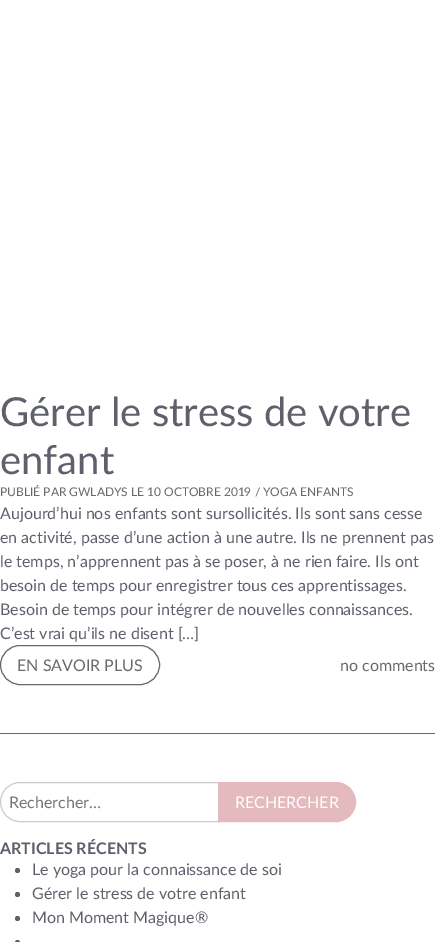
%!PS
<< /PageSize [435 942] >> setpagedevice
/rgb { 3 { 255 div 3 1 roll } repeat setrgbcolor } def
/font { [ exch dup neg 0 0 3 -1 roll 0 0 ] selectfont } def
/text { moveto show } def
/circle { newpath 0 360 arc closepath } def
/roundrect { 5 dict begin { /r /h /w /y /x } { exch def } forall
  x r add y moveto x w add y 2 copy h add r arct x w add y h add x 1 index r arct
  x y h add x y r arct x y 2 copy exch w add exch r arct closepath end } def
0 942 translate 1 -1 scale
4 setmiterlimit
255 255 255 rgb
0 0 435 942 rectfill
105 105 105 rgb
0 733 435 1 rectfill
0.5 645.5 159 39 19.5 roundrect stroke
204 204 204 rgb
20 782.5 moveto 198.5 0 rlineto 0 39 rlineto -198.5 0 rlineto -11 0 -19.5 -8.5 -19.5 -19.5 rcurveto 0 -11 8.5 -19.5 19.5 -19.5 rcurveto closepath stroke
229 186 191 rgb
218.5 782.5 moveto 117.5 0 rlineto 11 0 19.5 8.5 19.5 19.5 rcurveto 0 11 -8.5 19.5 -19.5 19.5 rcurveto -117.5 0 rlineto closepath gsave fill grestore
stroke
94 97 107 rgb
17.5 870.5 2.5 circle fill
17.5 894.5 2.5 circle fill
17.5 918.5 2.5 circle fill
17.5 942.5 2.5 circle fill
/Lato-Regular 40 font
(Gérer le stress de votre) 0 426 text
(enfant) 0 474 text
/Lato-Regular 12 font
105 105 105 rgb
(PUBLIÉ PAR GWLADYS LE 10 OCTOBRE 2019 / YOGA ENFANTS) 0 496 text
/Lato-Regular 16 font
94 97 107 rgb
(Aujourd’hui nos enfants sont sursollicités. Ils sont sans cesse) 0 519 text
(en activité, passe d’une action à une autre. Ils ne prennent pas) 0 543 text
(le temps, n’apprennent pas à se poser, à ne rien faire. Ils ont) 0 567 text
(besoin de temps pour enregistrer tous ces apprentissages.) 0 591 text
(Besoin de temps pour intégrer de nouvelles connaissances.) 0 615 text
(C’est vrai qu’ils ne disent […]) 0 639 text
105 105 105 rgb
(EN SAVOIR PLUS) 17 671 text
(no comments) 340 671 text
117 117 117 rgb
(Rechercher…) 9 808 text
255 255 255 rgb
(RECHERCHER) 235 808 text
/Lato-Bold 16 font
94 97 107 rgb
(ARTICLES RÉCENTS) 0 854 text
/Lato-Regular 16 font
(Le yoga pour la connaissance de soi) 32 875 text
(Gérer le stress de votre enfant) 32 899 text
(Mon Moment Magique®) 32 923 text
showpage
